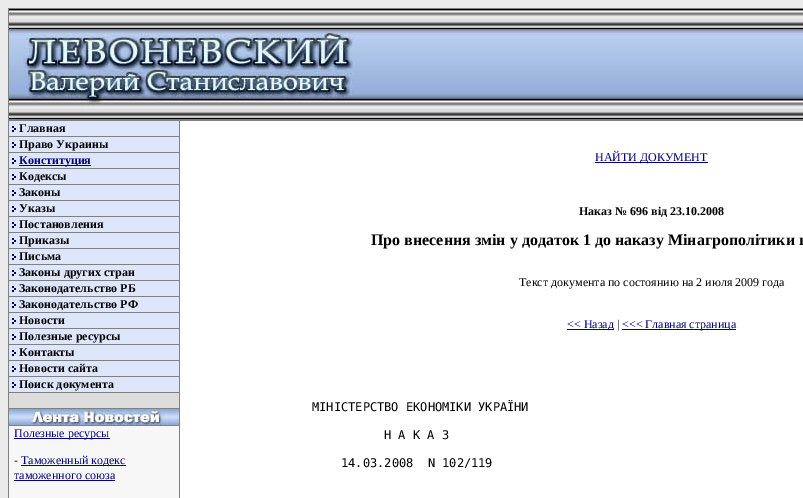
%!PS
<< /PageSize [803 498] >> setpagedevice
/rgb { 3 { 255 div 3 1 roll } repeat setrgbcolor } def
/font { [ exch dup neg 0 0 3 -1 roll 0 0 ] selectfont } def
/text { moveto show } def
/picture { 5 dict begin { /h /w /y /x /name } { exch def } forall
  gsave x y translate w h scale
  w h 8 [w 0 0 h 0 0] name (r) file false 3 colorimage grestore end } def
0 498 translate 1 -1 scale
4 setmiterlimit
235 235 235 rgb
0 0 803 498 rectfill
128 128 128 rgb
8 8 795 490 rectfill
(img_01.rgb) 9 9 400 110 picture
(img_02.rgb) 23 33 330 72 picture
(img_03.rgb) 409 9 394 110 picture
221 221 221 rgb
9 393 170 15 rectfill
221 230 251 rgb
9 121 170 15 rectfill
(img_04.rgb) 12 126 4 6 picture
9 137 170 15 rectfill
(img_04.rgb) 12 142 4 6 picture
9 153 170 15 rectfill
(img_04.rgb) 12 158 4 6 picture
0 0 128 rgb
19 165 72 1 rectfill
221 230 251 rgb
9 169 170 15 rectfill
(img_04.rgb) 12 174 4 6 picture
9 185 170 15 rectfill
(img_04.rgb) 12 190 4 6 picture
9 201 170 15 rectfill
(img_04.rgb) 12 206 4 6 picture
9 217 170 15 rectfill
(img_04.rgb) 12 222 4 6 picture
9 233 170 15 rectfill
(img_04.rgb) 12 238 4 6 picture
9 249 170 15 rectfill
(img_04.rgb) 12 254 4 6 picture
9 265 170 15 rectfill
(img_04.rgb) 12 270 4 6 picture
9 281 170 15 rectfill
(img_04.rgb) 12 286 4 6 picture
9 297 170 15 rectfill
(img_04.rgb) 12 302 4 6 picture
9 313 170 15 rectfill
(img_04.rgb) 12 318 4 6 picture
9 329 170 15 rectfill
(img_04.rgb) 12 334 4 6 picture
9 345 170 15 rectfill
(img_04.rgb) 12 350 4 6 picture
9 361 170 15 rectfill
(img_04.rgb) 12 366 4 6 picture
9 377 170 15 rectfill
(img_04.rgb) 12 382 4 6 picture
(img_05.rgb) 9 409 170 16 picture
247 247 247 rgb
9 426 170 72 rectfill
0 0 128 rgb
14 438 96 1 rectfill
21 465 105 1 rectfill
14 480 101 1 rectfill
255 255 255 rgb
180 121 623 377 rectfill
0 0 128 rgb
595 162 113 1 rectfill
567 329 47 1 rectfill
622 329 114 1 rectfill
/LiberationSerif-Bold 12 font
0 0 0 rgb
(Главная) 19 132 text
(Право Украины) 19 148 text
0 0 128 rgb
(Конституция) 19 164 text
0 0 0 rgb
(Кодексы) 19 180 text
(Законы) 19 196 text
(Указы) 19 212 text
(Постановления) 19 228 text
(Приказы) 19 244 text
(Письма) 19 260 text
(Законы других стран) 19 276 text
(Законодательство РБ) 19 292 text
(Законодательство РФ) 19 308 text
(Новости) 19 324 text
(Полезные ресурсы) 19 340 text
(Контакты) 19 356 text
(Новости сайта) 19 372 text
(Поиск документа) 19 388 text
/LiberationSerif-Regular 12 font
0 0 128 rgb
(Полезные ресурсы) 14 437 text
0 0 0 rgb
(-) 14 464 text
0 0 128 rgb
(Таможенный кодекс) 21 464 text
(таможенного союза) 14 479 text
(НАЙТИ ДОКУМЕНТ) 595 161 text
/LiberationSerif-Bold 12 font
0 0 0 rgb
(Наказ № 696 від 23.10.2008) 579 215 text
/LiberationSerif-Bold 16 font
(Про внесення змін у додаток 1 до наказу Мінагрополітики в) 371 245 text
/LiberationSerif-Regular 12 font
(Текст документа по состоянию на 2 июля 2009 года) 519 286 text
0 0 128 rgb
(<< Назад) 567 328 text
0 0 0 rgb
(|) 617 328 text
0 0 128 rgb
(<<< Главная страница) 622 328 text
/DejaVuSansMono-Regular 12 font
0 0 0 rgb
(МІНІСТЕРСТВО ЕКОНОМІКИ УКРАЇНИ) 312 411 text
(Н А К А З) 384 439 text
(14.03.2008  N 102/119) 341 467 text
showpage
